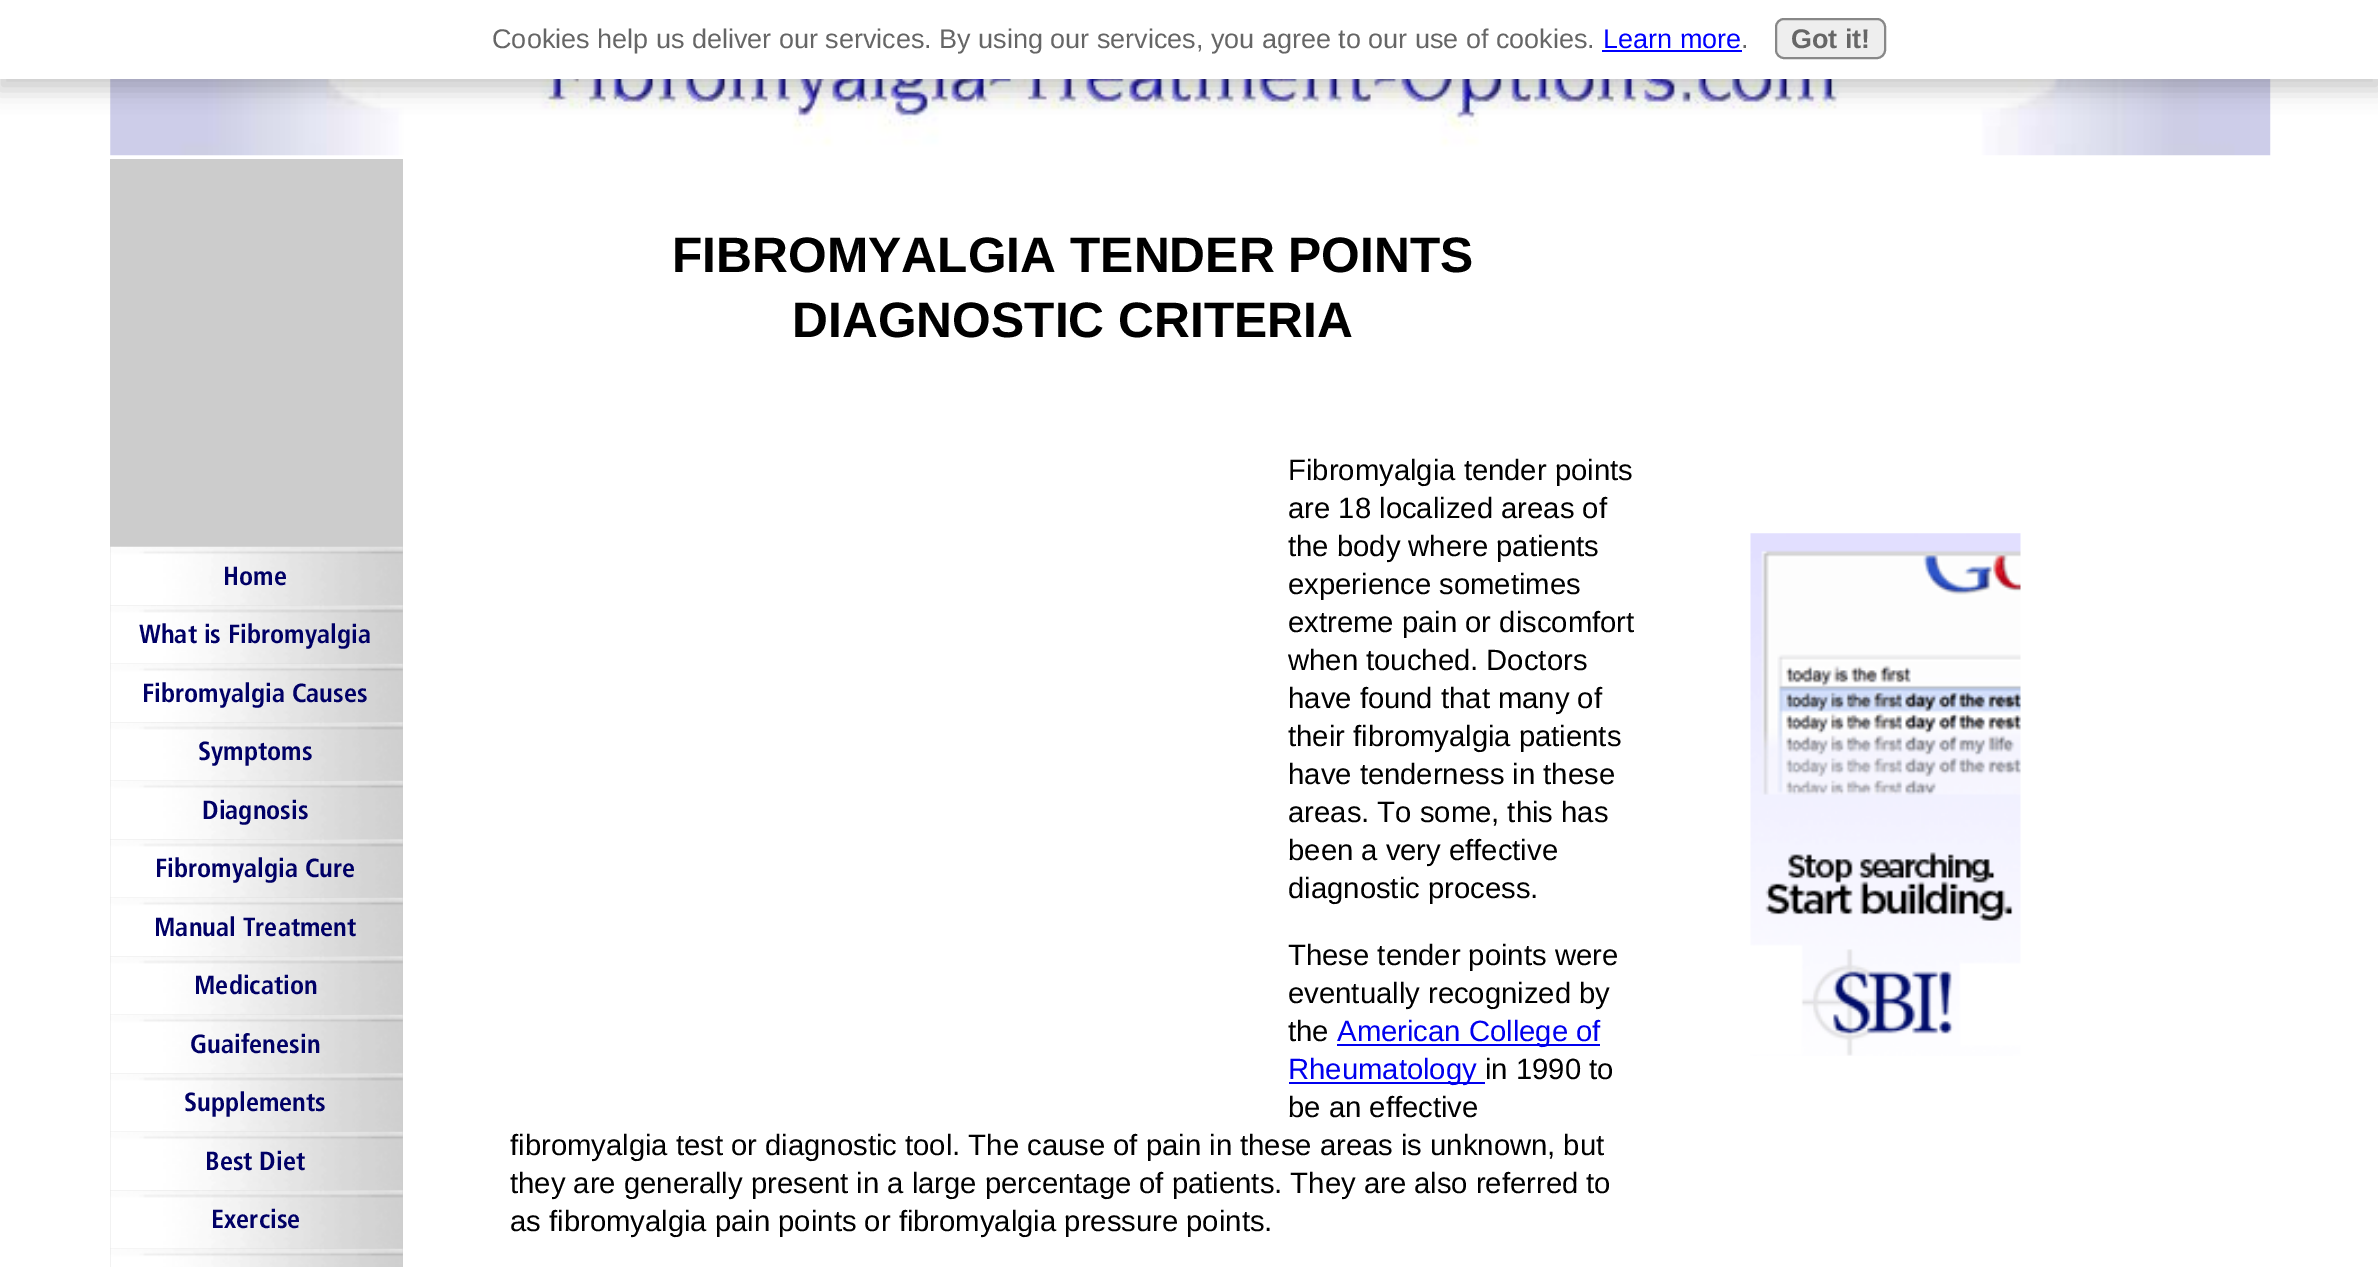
%!PS
<< /PageSize [2378 1267] /PageUsesTransparency true >> setpagedevice
/rgb { 3 { 255 div 3 1 roll } repeat setrgbcolor } def
/font { [ exch dup neg 0 0 3 -1 roll 0 0 ] selectfont } def
/text { moveto show } def
/alpha { dup .setfillconstantalpha .setstrokeconstantalpha } def
/roundrect { 5 dict begin { /r /h /w /y /x } { exch def } forall
  x r add y moveto x w add y 2 copy h add r arct x w add y h add x 1 index r arct
  x y h add x y r arct x y 2 copy exch w add exch r arct closepath end } def
/shadow { 12 dict begin { /a /b /q /h /w /y /x } { exch def } forall gsave /was 0 def
  9 -2 -9 { dup b mul 4 div /e exch def 1 sub .425 mul 2.718 exch exp 1 add a .99 .min exch div /now exch def
    1 1 now sub 1 was sub div sub alpha /was now def
    w h .min e 2 mul add 0 gt { x e sub y e sub w e 2 mul add h e 2 mul add
      q e add b .6 mul add w h .min 2 div e add .min 0 .max roundrect fill } if } for grestore end } def
/picture { 5 dict begin { /h /w /y /x /name } { exch def } forall
  gsave x y translate w h scale
  w h 8 [w 0 0 h 0 0] name (r) file false 3 colorimage grestore end } def
0 .pushpdf14devicefilter
0 1267 translate 1 -1 scale
4 setmiterlimit
255 255 255 rgb
0 0 2378 1267 rectfill
(img_01.rgb) 110 79 2161 77 picture
0 0 0 rgb
-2 7 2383 83 0 11 0.2 shadow
255 255 255 rgb
0 0 2378 79 rectfill
0 0 255 rgb
1602 50 140 2 rectfill
238 238 238 rgb
1776 19 109 39 8 roundrect gsave fill grestore
136 136 136 rgb
2 setlinewidth
stroke
204 204 204 rgb
110 159 293 1108 rectfill
(img_02.rgb) 110 546 293 60 picture
(img_03.rgb) 110 605 293 59 picture
(img_04.rgb) 110 663 293 60 picture
(img_03.rgb) 110 722 293 59 picture
(img_04.rgb) 110 780 293 60 picture
(img_03.rgb) 110 839 293 59 picture
(img_04.rgb) 110 897 293 60 picture
(img_03.rgb) 110 956 293 59 picture
(img_04.rgb) 110 1014 293 60 picture
(img_03.rgb) 110 1073 293 59 picture
(img_05.rgb) 110 1131 293 60 picture
(img_03.rgb) 110 1190 293 59 picture
(img_06.rgb) 110 1248 293 19 picture
0 0 238 rgb
1337 1044 263 2 rectfill
1289 1082 196 2 rectfill
(img_07.rgb) 1750 533 271 523 picture
/LiberationSans-Regular 27 font
102 102 102 rgb
(Cookies help us deliver our services. By using our services, you agree to our use of cookies.) 492 48 text
0 0 255 rgb
(Learn more) 1603 48 text
102 102 102 rgb
(.) 1741 48 text
/LiberationSans-Bold 27 font
(Got it!) 1791 48 text
/Frutiger-Regular 26.25 font
0 0 102 rgb
(Home) 223 585 text
(What is Fibromyalgia) 139 643 text
(Fibromyalgia Causes) 142 702 text
(Symptoms) 198 760 text
(Diagnosis) 202 819 text
(Fibromyalgia Cure) 155 877 text
(Manual Treatment) 154 936 text
(Medication) 194 994 text
(Guaifenesin) 190 1053 text
(Supplements) 184 1111 text
(Best Diet) 205 1170 text
(Exercise) 211 1228 text
/LiberationSans-Bold 49.75 font
0 0 0 rgb
(FIBROMYALGIA TENDER POINTS) 672 272 text
(DIAGNOSTIC CRITERIA) 792 337 text
/LiberationSans-Regular 29.25 font
(Fibromyalgia tender points) 1288 480 text
(are 18 localized areas of) 1288 518 text
(the body where patients) 1288 556 text
(experience sometimes) 1288 594 text
(extreme pain or discomfort) 1288 632 text
(when touched. Doctors) 1288 670 text
(have found that many of) 1288 708 text
(their fibromyalgia patients) 1288 746 text
(have tenderness in these) 1288 784 text
(areas. To some, this has) 1288 822 text
(been a very effective) 1288 860 text
(diagnostic process.) 1288 898 text
(These tender points were) 1288 965 text
(eventually recognized by) 1288 1003 text
(the) 1288 1041 text
0 0 238 rgb
(American College of) 1337 1041 text
(Rheumatology) 1288 1079 text
0 0 0 rgb
(in 1990 to) 1485 1079 text
(be an effective) 1288 1117 text
(fibromyalgia test or diagnostic tool. The cause of pain in these areas is unknown, but) 510 1155 text
(they are generally present in a large percentage of patients. They are also referred to) 510 1193 text
(as fibromyalgia pain points or fibromyalgia pressure points.) 510 1231 text
.poppdf14devicefilter showpage
